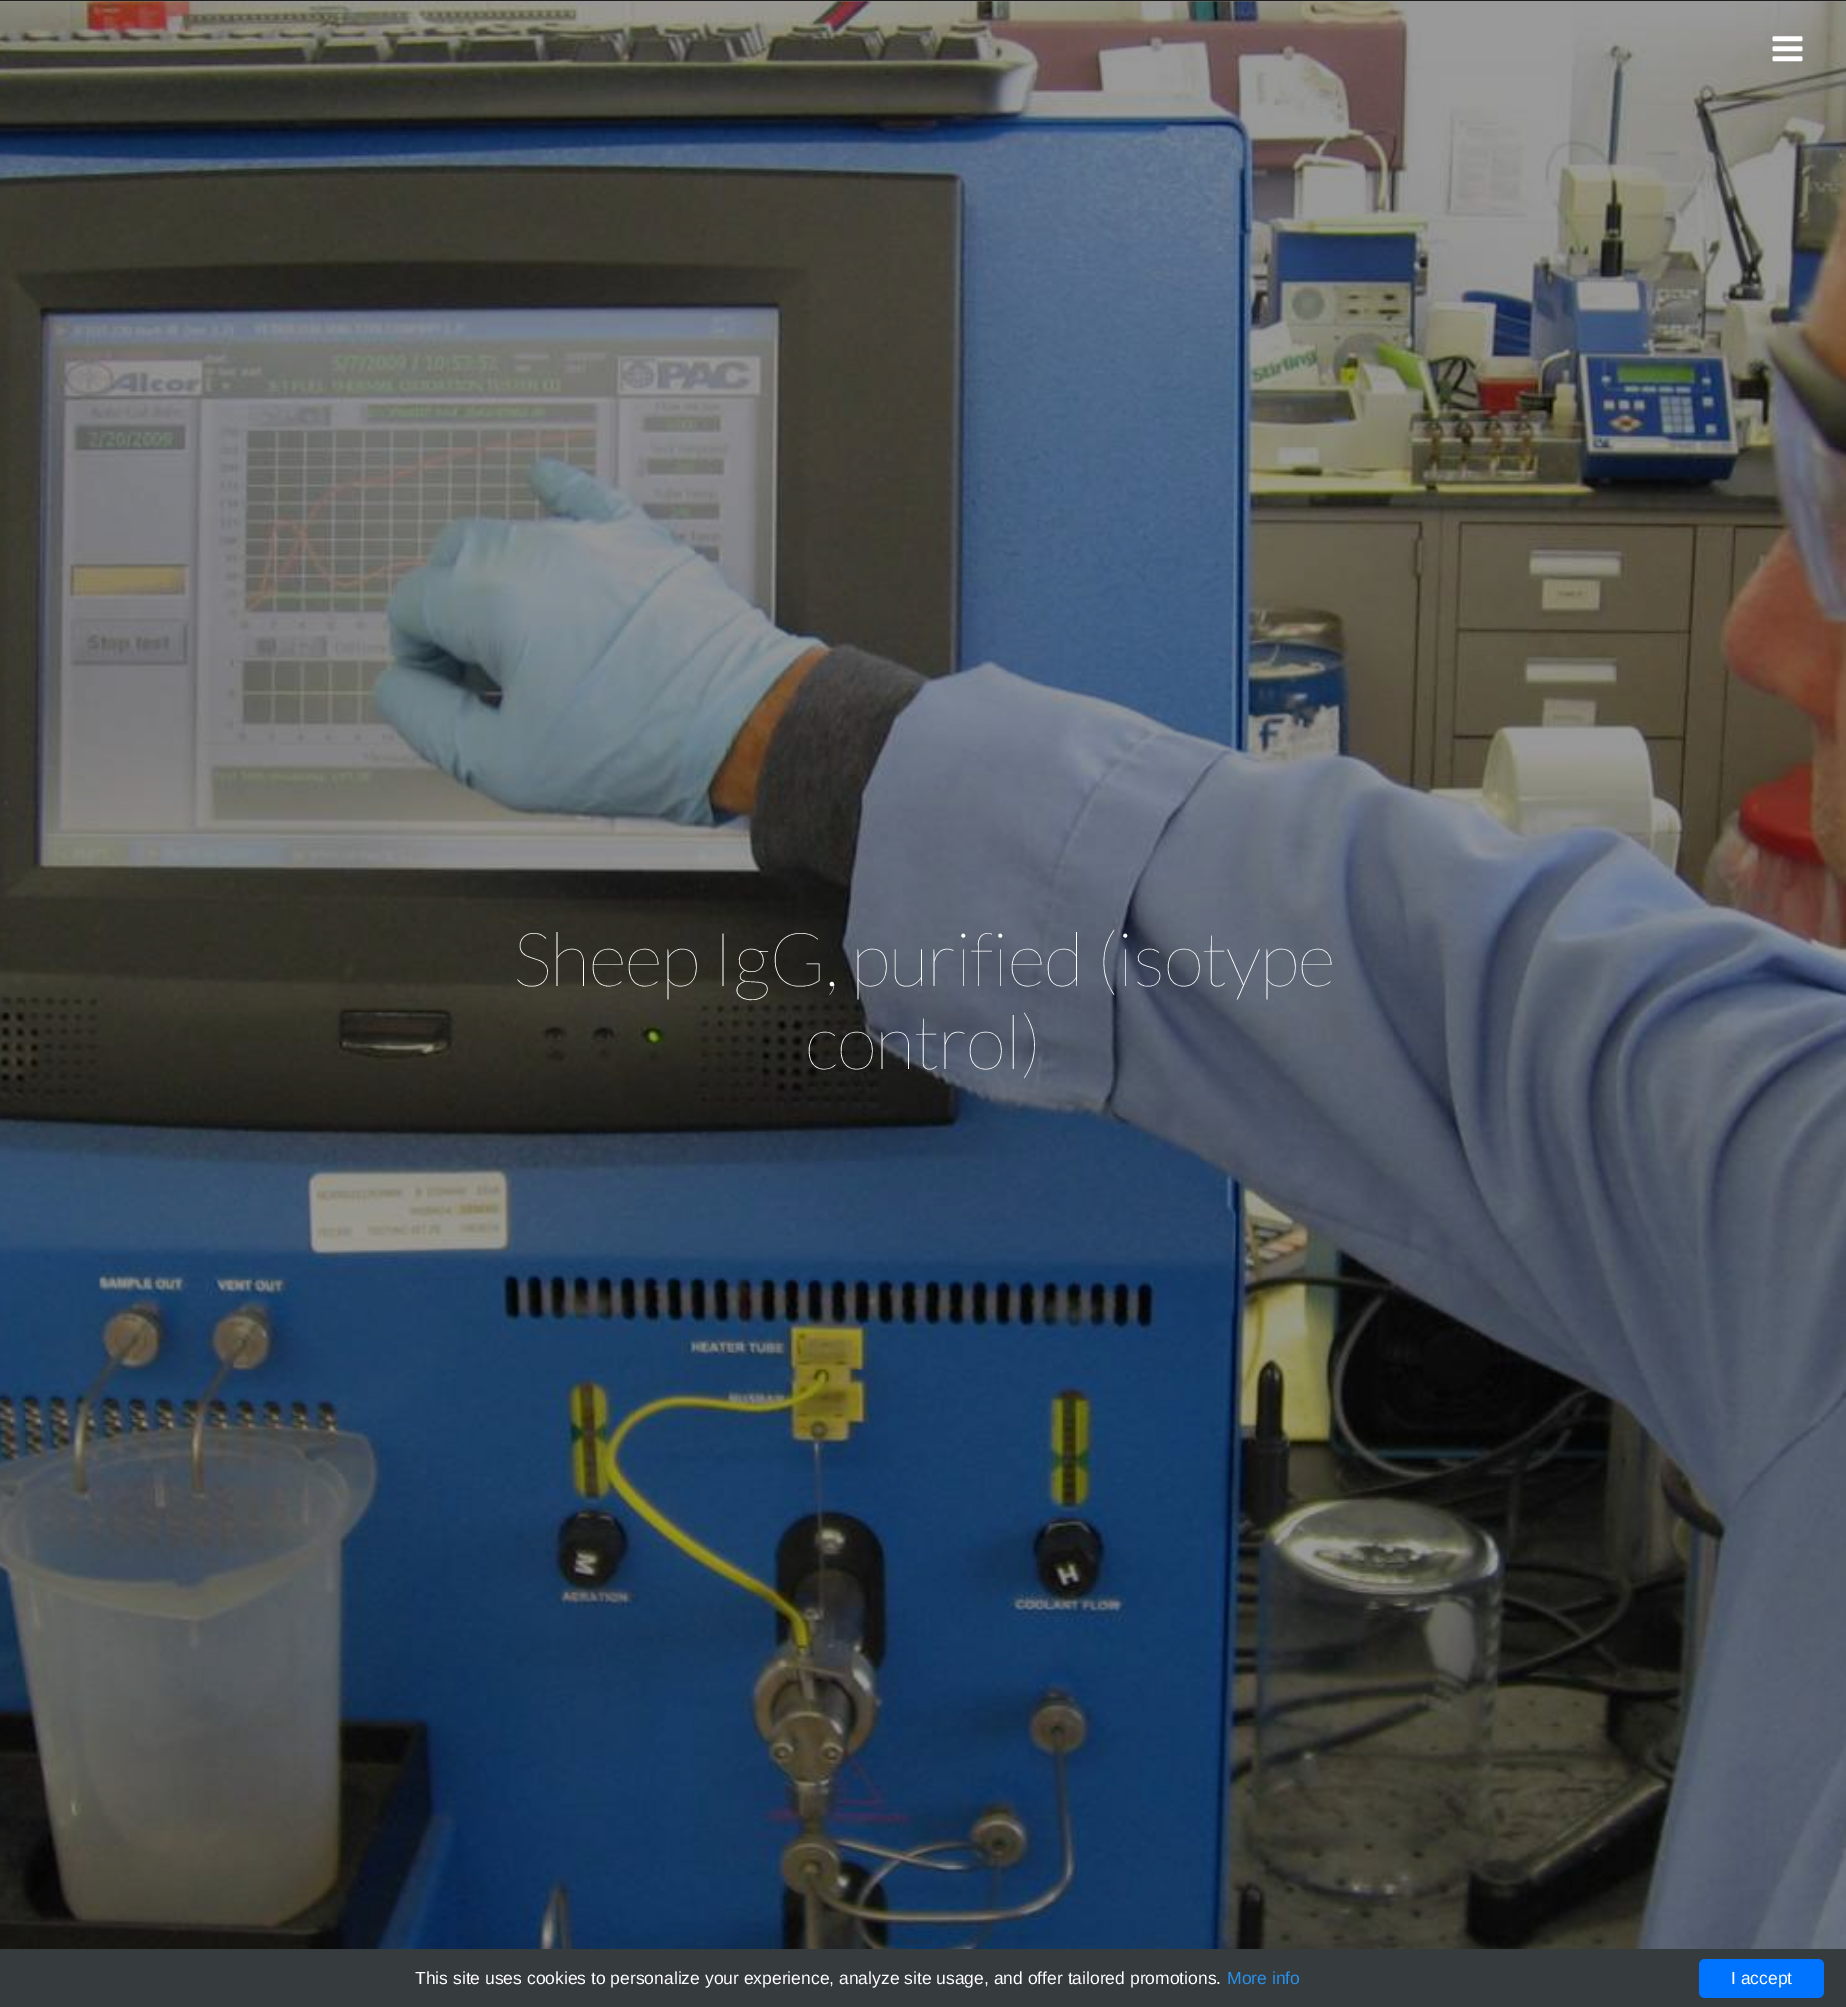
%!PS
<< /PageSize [1846 2007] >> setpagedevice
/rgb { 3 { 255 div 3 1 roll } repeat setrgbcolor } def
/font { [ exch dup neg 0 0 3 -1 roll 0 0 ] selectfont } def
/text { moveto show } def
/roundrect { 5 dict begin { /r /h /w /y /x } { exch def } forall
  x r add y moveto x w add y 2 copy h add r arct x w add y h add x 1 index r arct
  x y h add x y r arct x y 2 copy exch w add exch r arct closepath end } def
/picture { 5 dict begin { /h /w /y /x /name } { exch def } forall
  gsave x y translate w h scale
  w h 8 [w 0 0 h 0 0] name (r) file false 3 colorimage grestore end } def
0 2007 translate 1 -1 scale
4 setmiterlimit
255 255 255 rgb
0 0 1846 2007 rectfill
31 31 31 rgb
0 0 1846 1 rectfill
(img_02.rgb) 0 1 1846 1948 picture
(img_01.rgb) 1772 36 31 26 picture
54 59 62 rgb
0 1949 1846 58 rectfill
0 115 255 rgb
1699 1959 125 39 6 roundrect fill
/Lato-Thin 75 font
255 255 255 rgb
513 986 moveto -1.25 0 (Sheep IgG, purified \(isotype) ashow
805 1069 moveto -1.25 0 (control\)) ashow
/LiberationSans-Regular 17.5 font
(This site uses cookies to personalize your experience, analyze site usage, and offer tailored promotions.) 415 1984 text
41 144 234 rgb
(More info) 1227 1984 text
255 255 255 rgb
(I accept) 1731 1984 text
showpage
